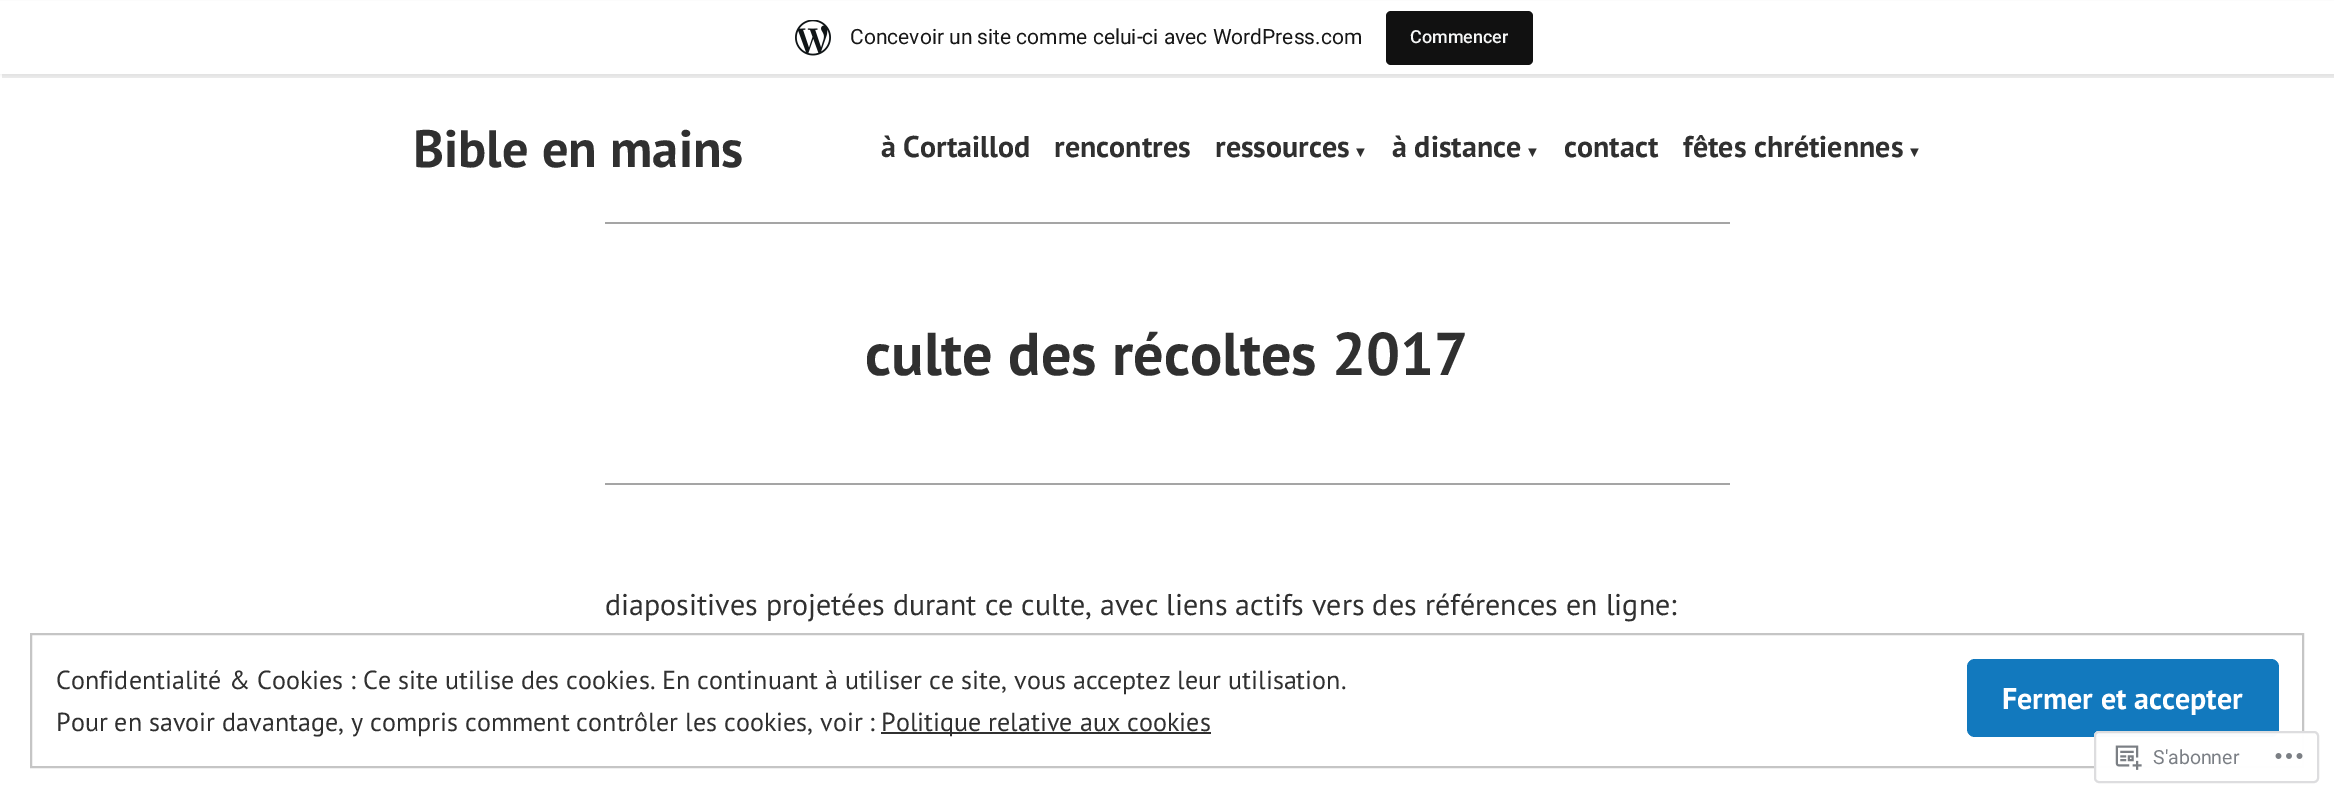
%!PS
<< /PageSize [2334 798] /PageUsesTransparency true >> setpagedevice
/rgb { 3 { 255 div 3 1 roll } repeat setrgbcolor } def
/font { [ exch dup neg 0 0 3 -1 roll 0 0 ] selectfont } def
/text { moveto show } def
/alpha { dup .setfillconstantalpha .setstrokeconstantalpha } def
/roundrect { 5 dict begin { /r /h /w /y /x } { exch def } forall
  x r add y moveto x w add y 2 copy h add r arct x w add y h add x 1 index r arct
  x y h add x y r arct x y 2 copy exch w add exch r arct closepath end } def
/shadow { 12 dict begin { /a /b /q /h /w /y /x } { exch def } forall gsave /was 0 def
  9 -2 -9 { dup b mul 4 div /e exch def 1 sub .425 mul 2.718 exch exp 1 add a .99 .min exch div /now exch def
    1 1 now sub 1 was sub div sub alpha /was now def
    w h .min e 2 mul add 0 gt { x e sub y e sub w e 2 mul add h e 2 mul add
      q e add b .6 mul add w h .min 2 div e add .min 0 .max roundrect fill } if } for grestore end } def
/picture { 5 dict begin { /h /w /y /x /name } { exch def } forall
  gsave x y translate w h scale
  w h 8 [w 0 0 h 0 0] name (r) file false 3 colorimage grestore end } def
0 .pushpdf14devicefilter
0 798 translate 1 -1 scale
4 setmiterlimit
255 255 255 rgb
0 0 2334 798 rectfill
0 0 0 rgb
0 2 2334 73 0 1.5 0.05 shadow
0.08 alpha
2 74 moveto 0 4 rlineto 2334 0 rlineto 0 -73 rlineto -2 0 rlineto 0 69 rlineto closepath fill
1 alpha
255 255 255 rgb
0 1 2334 73 rectfill
(img_01.rgb) 795 20 36 36 picture
17 17 17 rgb
1386 11 147 54 5 roundrect fill
165 165 165 rgb
605 222 1125 2 rectfill
605 483 1125 2 rectfill
197 197 197 rgb
2 setlinewidth
31 634 2272 133 rectstroke
18 121 190 rgb
1967 659 312 78 8 roundrect fill
48 48 48 rgb
881 732 330 2 rectfill
0.98 alpha
255 255 255 rgb
2094 731 225 52 5 roundrect fill
220 220 222 rgb
2095 732 223 50 4 roundrect stroke
1 alpha
(img_02.rgb) 2115 745 27 25 picture
(img_03.rgb) 2275 753 28 6 picture
/Roboto-Regular 21 font
23 23 23 rgb
(Concevoir un site comme celui-ci avec WordPress.com) 850 44 text
/Roboto-Medium 18 font
246 247 247 rgb
(Commencer) 1410 43 text
/PTSans-Bold 52.5 font
48 48 48 rgb
(Bible en mains) 413 167 text
/PTSans-Bold 30 font
(à Cortaillod) 881 157 text
(rencontres) 1054 157 text
(ressources) 1215 157 text
/LiberationSans-Bold 15 font
(▼) 1353 157 text
/PTSans-Bold 30 font
(à distance) 1392 157 text
/LiberationSans-Bold 15 font
(▼) 1525 157 text
/PTSans-Bold 30 font
(contact) 1564 157 text
(fêtes chrétiennes) 1683 157 text
/LiberationSans-Bold 15 font
(▼) 1907 157 text
/PTSans-Bold 60.25 font
(culte des récoltes 2017) 865 375 text
/PTSans-Regular 30 font
(diapositives projetées durant ce culte, avec liens actifs vers des références en ligne:) 605 615 text
/PTSans-Regular 26.1 font
(Confidentialité & Cookies : Ce site utilise des cookies. En continuant à utiliser ce site, vous acceptez leur utilisation.) 56 689 text
/PTSans-Bold 30 font
255 255 255 rgb
(Fermer et accepter) 2002 709 text
/PTSans-Regular 26.1 font
48 48 48 rgb
(Pour en savoir davantage, y compris comment contrôler les cookies, voir :) 56 731 text
(Politique relative aux cookies) 881 731 text
/Roboto-Regular 19.5 font
123 127 133 rgb
(S'abonner) 2153 764 text
.poppdf14devicefilter showpage
